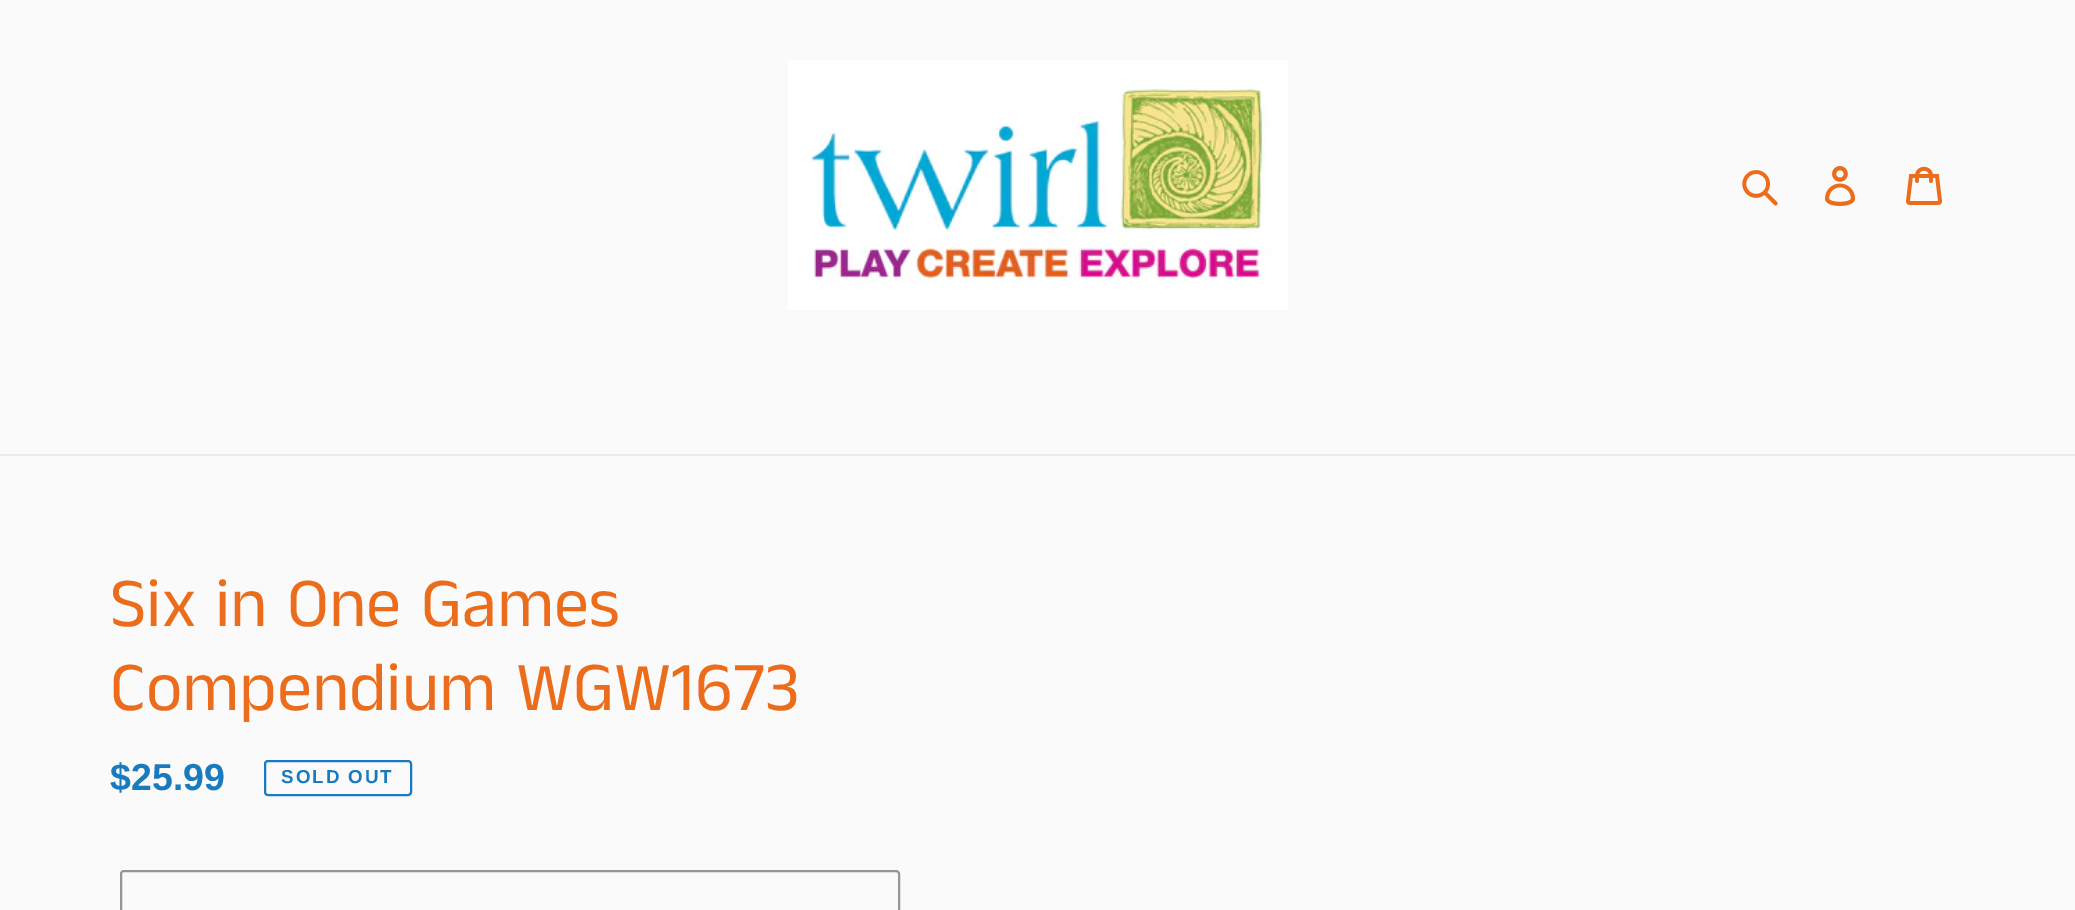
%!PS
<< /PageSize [2075 910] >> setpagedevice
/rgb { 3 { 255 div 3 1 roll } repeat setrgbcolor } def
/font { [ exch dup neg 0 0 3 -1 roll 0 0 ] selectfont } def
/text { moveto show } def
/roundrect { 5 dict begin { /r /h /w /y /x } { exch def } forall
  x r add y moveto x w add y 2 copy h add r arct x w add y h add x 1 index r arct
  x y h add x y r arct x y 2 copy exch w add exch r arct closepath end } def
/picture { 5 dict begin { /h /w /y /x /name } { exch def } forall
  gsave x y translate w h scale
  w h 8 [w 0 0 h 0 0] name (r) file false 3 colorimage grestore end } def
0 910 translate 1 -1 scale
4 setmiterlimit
250 250 250 rgb
0 0 2075 910 rectfill
(img_01.rgb) 788 60 500 250 picture
(img_02.rgb) 1742 170 36 36 picture
(img_03.rgb) 1825 166 31 40 picture
(img_04.rgb) 1906 166 36 39 picture
235 235 235 rgb
0 454 2075 2 rectfill
25 123 189 rgb
2 setlinewidth
265 761 146 34 3 roundrect stroke
151 150 150 rgb
121 871 778 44 3 roundrect stroke
/AnekTamil-Regular 70 font
235 108 27 rgb
(Six in One Games) 110 626 text
(Compendium WGW1673) 110 710 text
/LiberationSans-Bold 37.5 font
25 123 189 rgb
($25.99) 110 790 text
/LiberationSans-Bold 18.75 font
281 783 moveto 2 0 (SOLD OUT) ashow
showpage
